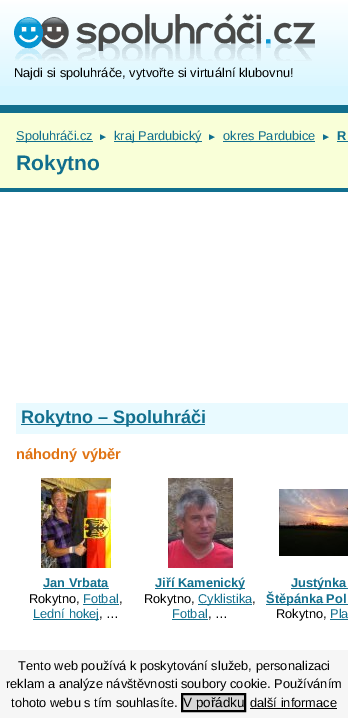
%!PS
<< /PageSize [348 718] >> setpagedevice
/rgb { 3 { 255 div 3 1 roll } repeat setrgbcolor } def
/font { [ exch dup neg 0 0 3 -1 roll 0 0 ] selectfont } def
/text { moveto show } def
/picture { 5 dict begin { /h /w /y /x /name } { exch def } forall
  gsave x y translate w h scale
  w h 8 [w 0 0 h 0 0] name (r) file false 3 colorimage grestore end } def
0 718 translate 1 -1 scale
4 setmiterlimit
255 255 255 rgb
0 0 348 718 rectfill
214 245 255 rgb
0 86 348 19 rectfill
(img_01.rgb) 0 0 348 86 picture
17 111 142 rgb
0 105 348 8 rectfill
(img_02.rgb) 14 13 301 48 picture
249 255 216 rgb
0 113 348 75 rectfill
17 111 142 rgb
0 188 348 4 rectfill
16 141 77 1 rectfill
114 141 88 1 rectfill
223 141 92 1 rectfill
337 141 11 1 rectfill
233 250 255 rgb
16 403 332 31 rectfill
17 111 142 rgb
21 424 184 1 rectfill
(img_03.rgb) 41 478 70 90 picture
43 588 66 1 rectfill
83 604 36 1 rectfill
33 619 66 1 rectfill
(img_04.rgb) 168 478 65 90 picture
155 588 90 1 rectfill
198 604 54 1 rectfill
172 619 36 1 rectfill
(img_05.rgb) 279 489 69 67 picture
291 588 57 1 rectfill
266 604 82 1 rectfill
330 619 18 1 rectfill
246 246 246 rgb
0 650 348 68 rectfill
215 215 215 rgb
182 694 moveto 63 0 rlineto 0 17 rlineto -63 0 rlineto closepath gsave fill grestore
0 0 0 rgb
2 setlinewidth
stroke
250 708 87 1 rectfill
/LiberationSans-Regular 12.8 font
(Najdi si spoluhráče, vytvořte si virtuální klubovnu!) 14 77 text
17 111 142 rgb
(Spoluhráči.cz) 16 140 text
/LiberationSans-Regular 10 font
(►) 98 140 text
/LiberationSans-Regular 12.8 font
(kraj Pardubický) 114 140 text
/LiberationSans-Regular 10 font
(►) 207 140 text
/LiberationSans-Regular 12.8 font
(okres Pardubice) 223 140 text
/LiberationSans-Regular 10 font
(►) 321 140 text
/LiberationSans-Bold 12.8 font
(R) 337 140 text
/LiberationSans-Bold 21 font
(Rokytno) 16 170 text
/LiberationSans-Bold 18 font
(Rokytno – Spoluhráči) 21 423 text
/LiberationSans-Bold 14.75 font
224 115 19 rgb
(náhodný výběr) 16 459 text
/LiberationSans-Bold 12.8 font
17 111 142 rgb
(Jan Vrbata) 43 587 text
/LiberationSans-Regular 12.8 font
0 0 0 rgb
(Rokytno,) 29 603 text
17 111 142 rgb
(Fotbal) 83 603 text
0 0 0 rgb
(,) 119 603 text
17 111 142 rgb
(Lední hokej) 33 618 text
0 0 0 rgb
(, …) 99 618 text
/LiberationSans-Bold 12.8 font
17 111 142 rgb
(Jiří Kamenický) 155 587 text
/LiberationSans-Regular 12.8 font
0 0 0 rgb
(Rokytno,) 144 603 text
17 111 142 rgb
(Cyklistika) 198 603 text
0 0 0 rgb
(,) 252 603 text
17 111 142 rgb
(Fotbal) 172 618 text
0 0 0 rgb
(, …) 208 618 text
/LiberationSans-Bold 12.8 font
17 111 142 rgb
(Justýnka) 291 587 text
(Štěpánka Pol) 266 603 text
/LiberationSans-Regular 12.8 font
0 0 0 rgb
(Rokytno,) 276 618 text
17 111 142 rgb
(Pla) 330 618 text
0 0 0 rgb
(Tento web používá k poskytování služeb, personalizaci) 18 670 text
(reklam a analýze návštěvnosti soubory cookie. Používáním) 6 688 text
(tohoto webu s tím souhlasíte.) 11 707 text
/LiberationSans-Regular 13.5 font
(V pořádku) 183 707 text
/LiberationSans-Regular 12.8 font
(další informace) 250 707 text
showpage
